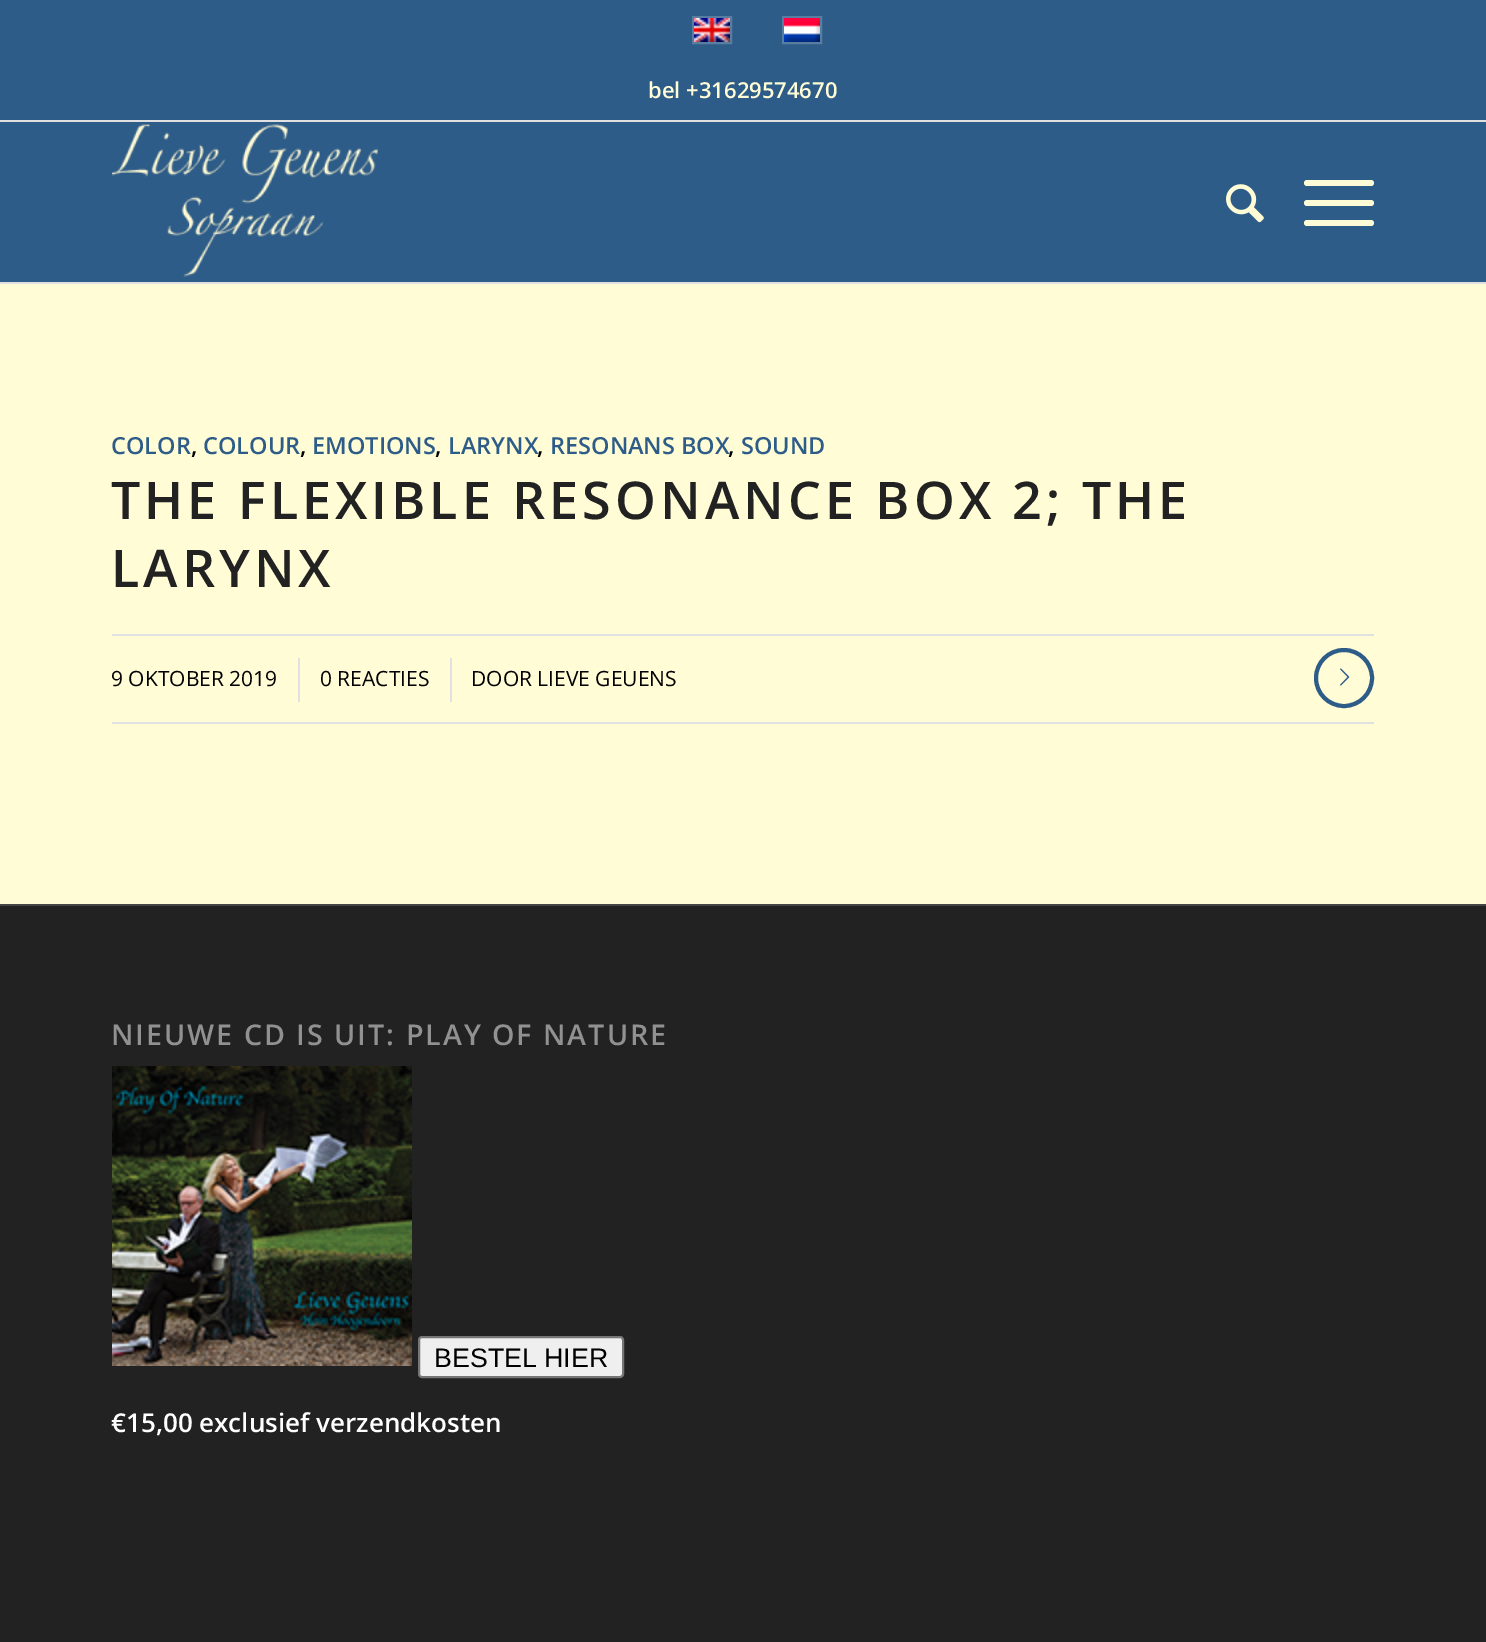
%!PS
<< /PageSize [1486 1642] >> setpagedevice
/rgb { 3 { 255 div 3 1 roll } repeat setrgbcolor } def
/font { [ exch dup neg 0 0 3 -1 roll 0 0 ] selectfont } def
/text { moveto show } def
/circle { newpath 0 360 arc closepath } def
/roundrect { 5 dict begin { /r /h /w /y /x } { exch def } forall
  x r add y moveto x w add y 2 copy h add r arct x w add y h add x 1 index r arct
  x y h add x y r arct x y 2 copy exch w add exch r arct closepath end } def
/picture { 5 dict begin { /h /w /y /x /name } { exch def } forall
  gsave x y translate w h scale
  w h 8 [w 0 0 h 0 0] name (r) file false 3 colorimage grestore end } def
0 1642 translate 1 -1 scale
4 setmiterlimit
255 252 214 rgb
0 0 1486 1642 rectfill
45 92 136 rgb
0 0 1486 120 rectfill
225 225 225 rgb
0 120 1486 2 rectfill
87 125 160 rgb
2 setlinewidth
693 17 38 26 rectstroke
(img_01.rgb) 694 18 36 24 picture
783 17 38 26 rectstroke
(img_02.rgb) 784 18 36 24 picture
45 92 136 rgb
0 122 1486 160 rectfill
225 225 225 rgb
0 282 1486 2 rectfill
(img_03.rgb) 112 124 266 153 picture
(img_04.rgb) 1226 184 38 39 picture
255 252 214 rgb
1304 200 70 6 3 roundrect fill
1304 180 70 6 3 roundrect fill
1304 220 70 6 3 roundrect fill
225 225 225 rgb
112 634 1262 2 rectfill
112 722 1262 2 rectfill
298 658 2 44 rectfill
450 658 2 44 rectfill
45 92 136 rgb
4 setlinewidth
1344 678 28 circle stroke
(img_05.rgb) 1340 668 10 18 picture
34 34 34 rgb
0 906 1486 736 rectfill
68 68 68 rgb
0 904 1486 2 rectfill
(img_06.rgb) 112 1066 300 300 picture
239 239 239 rgb
419 1337 204 40 3 roundrect gsave fill grestore
118 118 118 rgb
2 setlinewidth
stroke
/OpenSans-SemiBold 22 font
255 252 214 rgb
(bel +31629574670) 648 98 text
/OpenSans-SemiBold 23.5 font
45 92 136 rgb
(COLOR) 111 454 text
0 0 0 rgb
(,) 191 454 text
45 92 136 rgb
(COLOUR) 203 454 text
0 0 0 rgb
(,) 300 454 text
45 92 136 rgb
(EMOTIONS) 312 454 text
0 0 0 rgb
(,) 435 454 text
45 92 136 rgb
(LARYNX) 448 454 text
0 0 0 rgb
(,) 537 454 text
45 92 136 rgb
(RESONANS BOX) 550 454 text
0 0 0 rgb
(,) 728 454 text
45 92 136 rgb
(SOUND) 741 454 text
/OpenSans-SemiBold 52 font
34 34 34 rgb
111 519 moveto 4 0 (THE FLEXIBLE RESONANCE BOX 2; THE) ashow
111 587 moveto 4 0 (LARYNX) ashow
/OpenSans-Regular 21 font
0 0 0 rgb
(9 OKTOBER 2019) 111 686 text
(0 REACTIES) 320 686 text
(DOOR LIEVE GEUENS) 471 686 text
/OpenSans-SemiBold 28.6 font
145 145 145 rgb
111 1045 moveto 2 0 (NIEUWE CD IS UIT: PLAY OF NATURE) ashow
/LiberationSans-Regular 26.75 font
0 0 0 rgb
(BESTEL HIER) 434 1367 text
/OpenSans-SemiBold 26 font
255 255 255 rgb
(€15,00 exclusief verzendkosten) 111 1432 text
showpage
